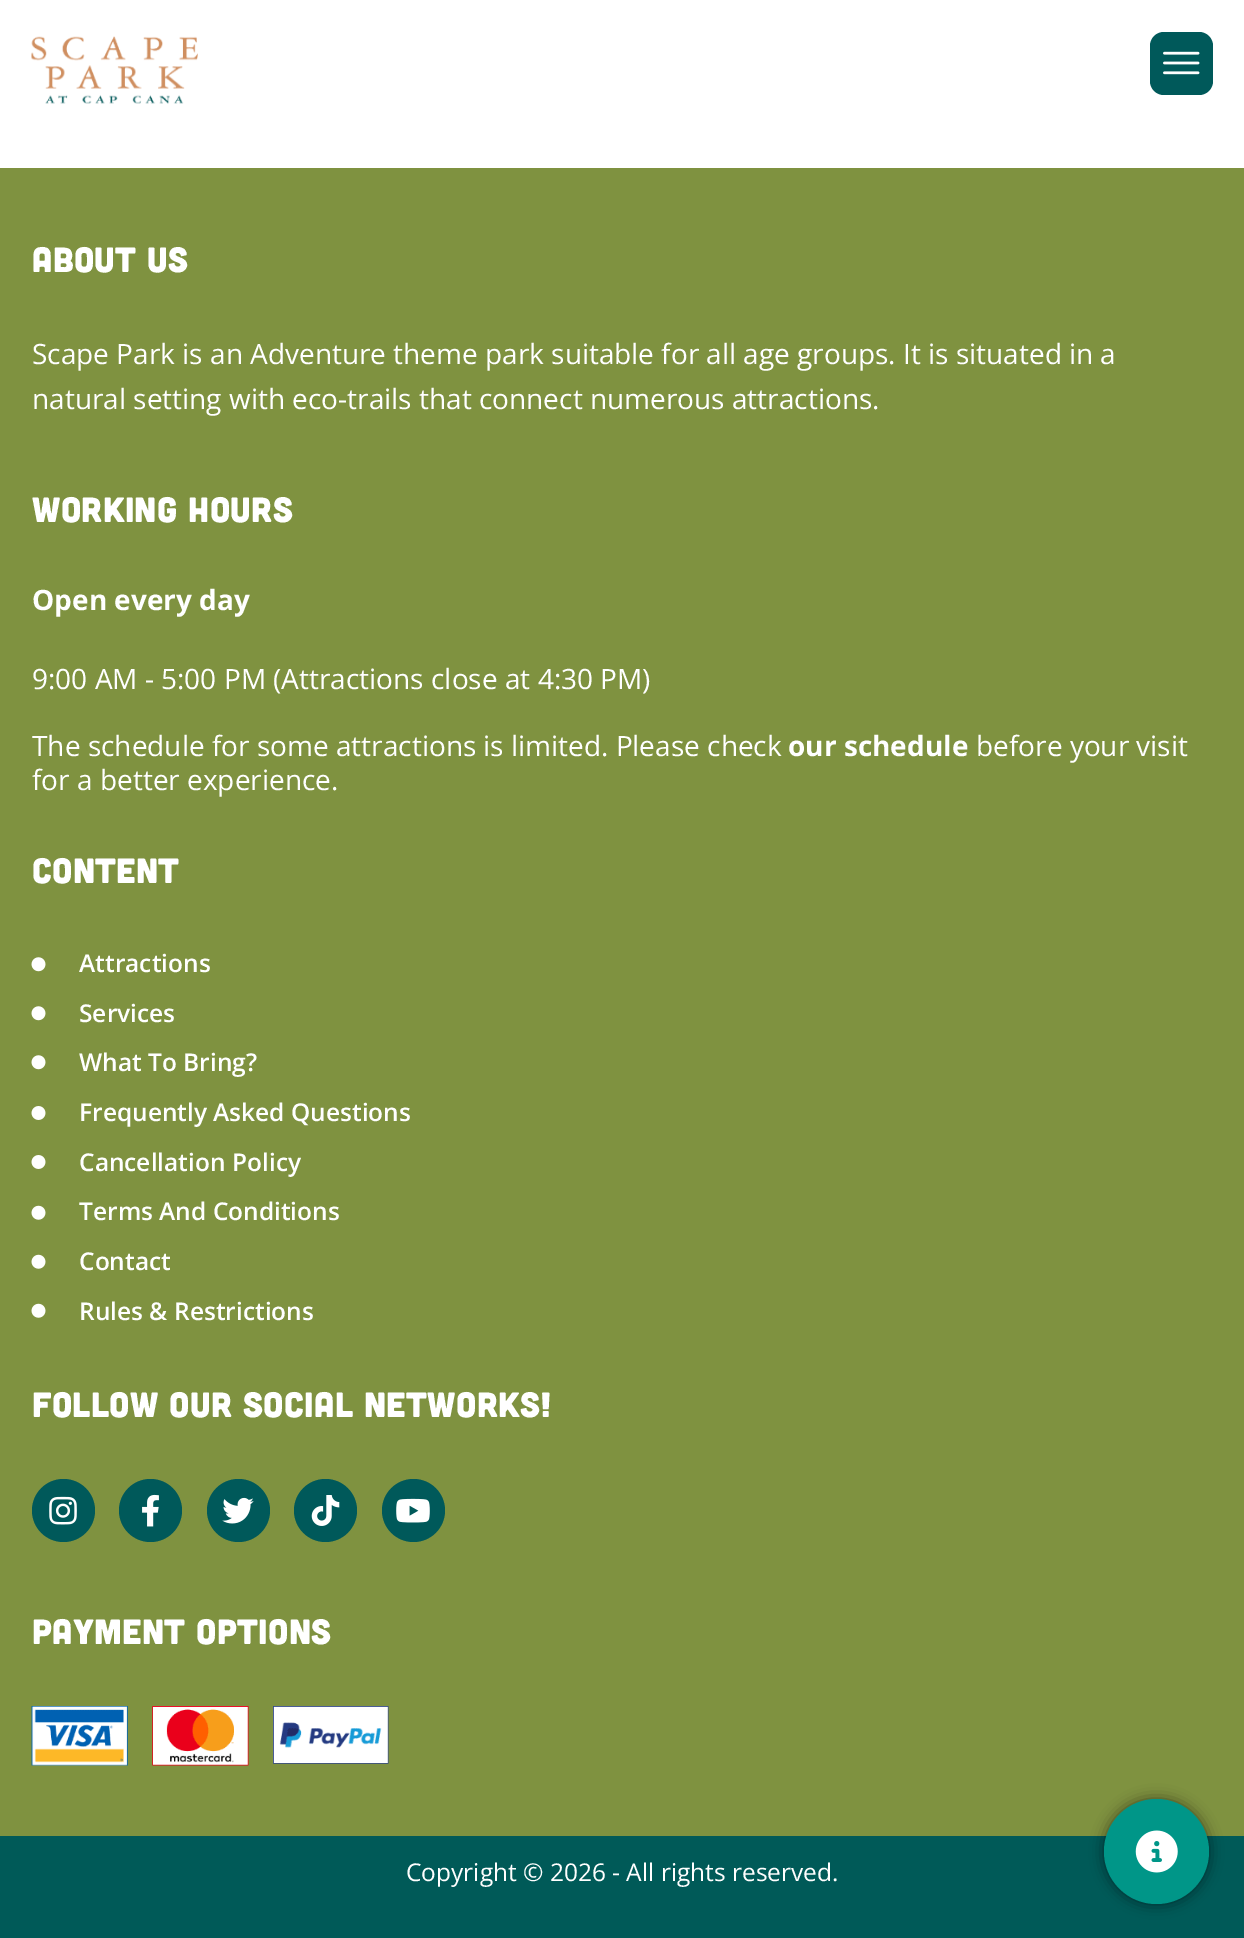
%!PS
<< /PageSize [1244 1938] /PageUsesTransparency true >> setpagedevice
/rgb { 3 { 255 div 3 1 roll } repeat setrgbcolor } def
/font { [ exch dup neg 0 0 3 -1 roll 0 0 ] selectfont } def
/text { moveto show } def
/alpha { dup .setfillconstantalpha .setstrokeconstantalpha } def
/circle { newpath 0 360 arc closepath } def
/roundrect { 5 dict begin { /r /h /w /y /x } { exch def } forall
  x r add y moveto x w add y 2 copy h add r arct x w add y h add x 1 index r arct
  x y h add x y r arct x y 2 copy exch w add exch r arct closepath end } def
/shadow { 12 dict begin { /a /b /q /h /w /y /x } { exch def } forall gsave /was 0 def
  9 -2 -9 { dup b mul 4 div /e exch def 1 sub .425 mul 2.718 exch exp 1 add a .99 .min exch div /now exch def
    1 1 now sub 1 was sub div sub alpha /was now def
    w h .min e 2 mul add 0 gt { x e sub y e sub w e 2 mul add h e 2 mul add
      q e add b .6 mul add w h .min 2 div e add .min 0 .max roundrect fill } if } for grestore end } def
/picture { 5 dict begin { /h /w /y /x /name } { exch def } forall
  gsave x y translate w h scale
  w h 8 [w 0 0 h 0 0] name (r) file false 3 colorimage grestore end } def
0 .pushpdf14devicefilter
0 1938 translate 1 -1 scale
4 setmiterlimit
127 146 64 rgb
0 0 1244 1938 rectfill
255 255 255 rgb
0 0 1244 168 rectfill
(img_01.rgb) 31 36 167 68 picture
0 89 90 rgb
1150 32 63 63 14 roundrect fill
(img_02.rgb) 1163 51 37 24 picture
(img_03.rgb) 31 957 15 15 picture
(img_03.rgb) 31 1006 15 15 picture
(img_03.rgb) 31 1055 15 15 picture
(img_04.rgb) 31 1106 15 14 picture
(img_04.rgb) 31 1155 15 14 picture
(img_05.rgb) 31 1205 15 15 picture
(img_05.rgb) 31 1254 15 15 picture
(img_05.rgb) 31 1303 15 15 picture
63.5 1510.5 31.5 circle fill
(img_06.rgb) 49 1496 28 29 picture
150.5 1510.5 31.5 circle fill
(img_07.rgb) 142 1494 17 33 picture
238.5 1510.5 31.5 circle fill
(img_08.rgb) 222 1497 32 27 picture
325.5 1510.5 31.5 circle fill
(img_09.rgb) 311 1495 29 31 picture
413.5 1510.5 31.5 circle fill
(img_10.rgb) 396 1498 34 25 picture
(img_11.rgb) 31 1706 97 60 picture
(img_12.rgb) 152 1706 97 60 picture
(img_13.rgb) 273 1706 116 58 picture
0 90 88 rgb
0 1836 1244 102 rectfill
0 0 0 rgb
1104 1799 105 105 52.5 7 0.5 shadow
0 150 136 rgb
1156.5 1851.5 52.5 circle fill
(img_14.rgb) 1135 1830 43 43 picture
/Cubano-Regular 35 font
255 255 255 rgb
32 272 moveto 0.35 0 (About us) ashow
/OpenSans-Regular 28 font
(Scape Park is an Adventure theme park suitable for all age groups. It is situated in a) 32 364 text
(natural setting with eco-trails that connect numerous attractions.) 32 409 text
/Cubano-Regular 35 font
32 522 moveto 0.35 0 (WORKING HOURS) ashow
/OpenSans-Bold 28 font
(Open every day) 32 610 text
/OpenSans-Regular 28 font
(9:00 AM - 5:00 PM \(Attractions close at 4:30 PM\)) 32 689 text
(The schedule for some attractions is limited. Please check) 32 756 text
/OpenSans-Bold 28 font
(our schedule) 788 756 text
/OpenSans-Regular 28 font
(before your visit) 976 756 text
(for a better experience.) 32 790 text
/Cubano-Regular 35 font
32 883 moveto 0.35 0 (CONTENT) ashow
/OpenSans-SemiBold 24.5 font
(Attractions) 79 972 text
(Services) 79 1022 text
(What To Bring?) 79 1071 text
(Frequently Asked Questions) 79 1121 text
(Cancellation Policy) 79 1171 text
(Terms And Conditions) 79 1220 text
(Contact) 79 1270 text
(Rules & Restrictions) 79 1320 text
/Cubano-Regular 35 font
32 1417 moveto 0.35 0 (Follow our Social Networks!) ashow
32 1644 moveto 0.35 0 (Payment options) ashow
/OpenSans-Regular 24.5 font
(Copyright © 2026 - All rights reserved.) 406 1881 text
.poppdf14devicefilter showpage
